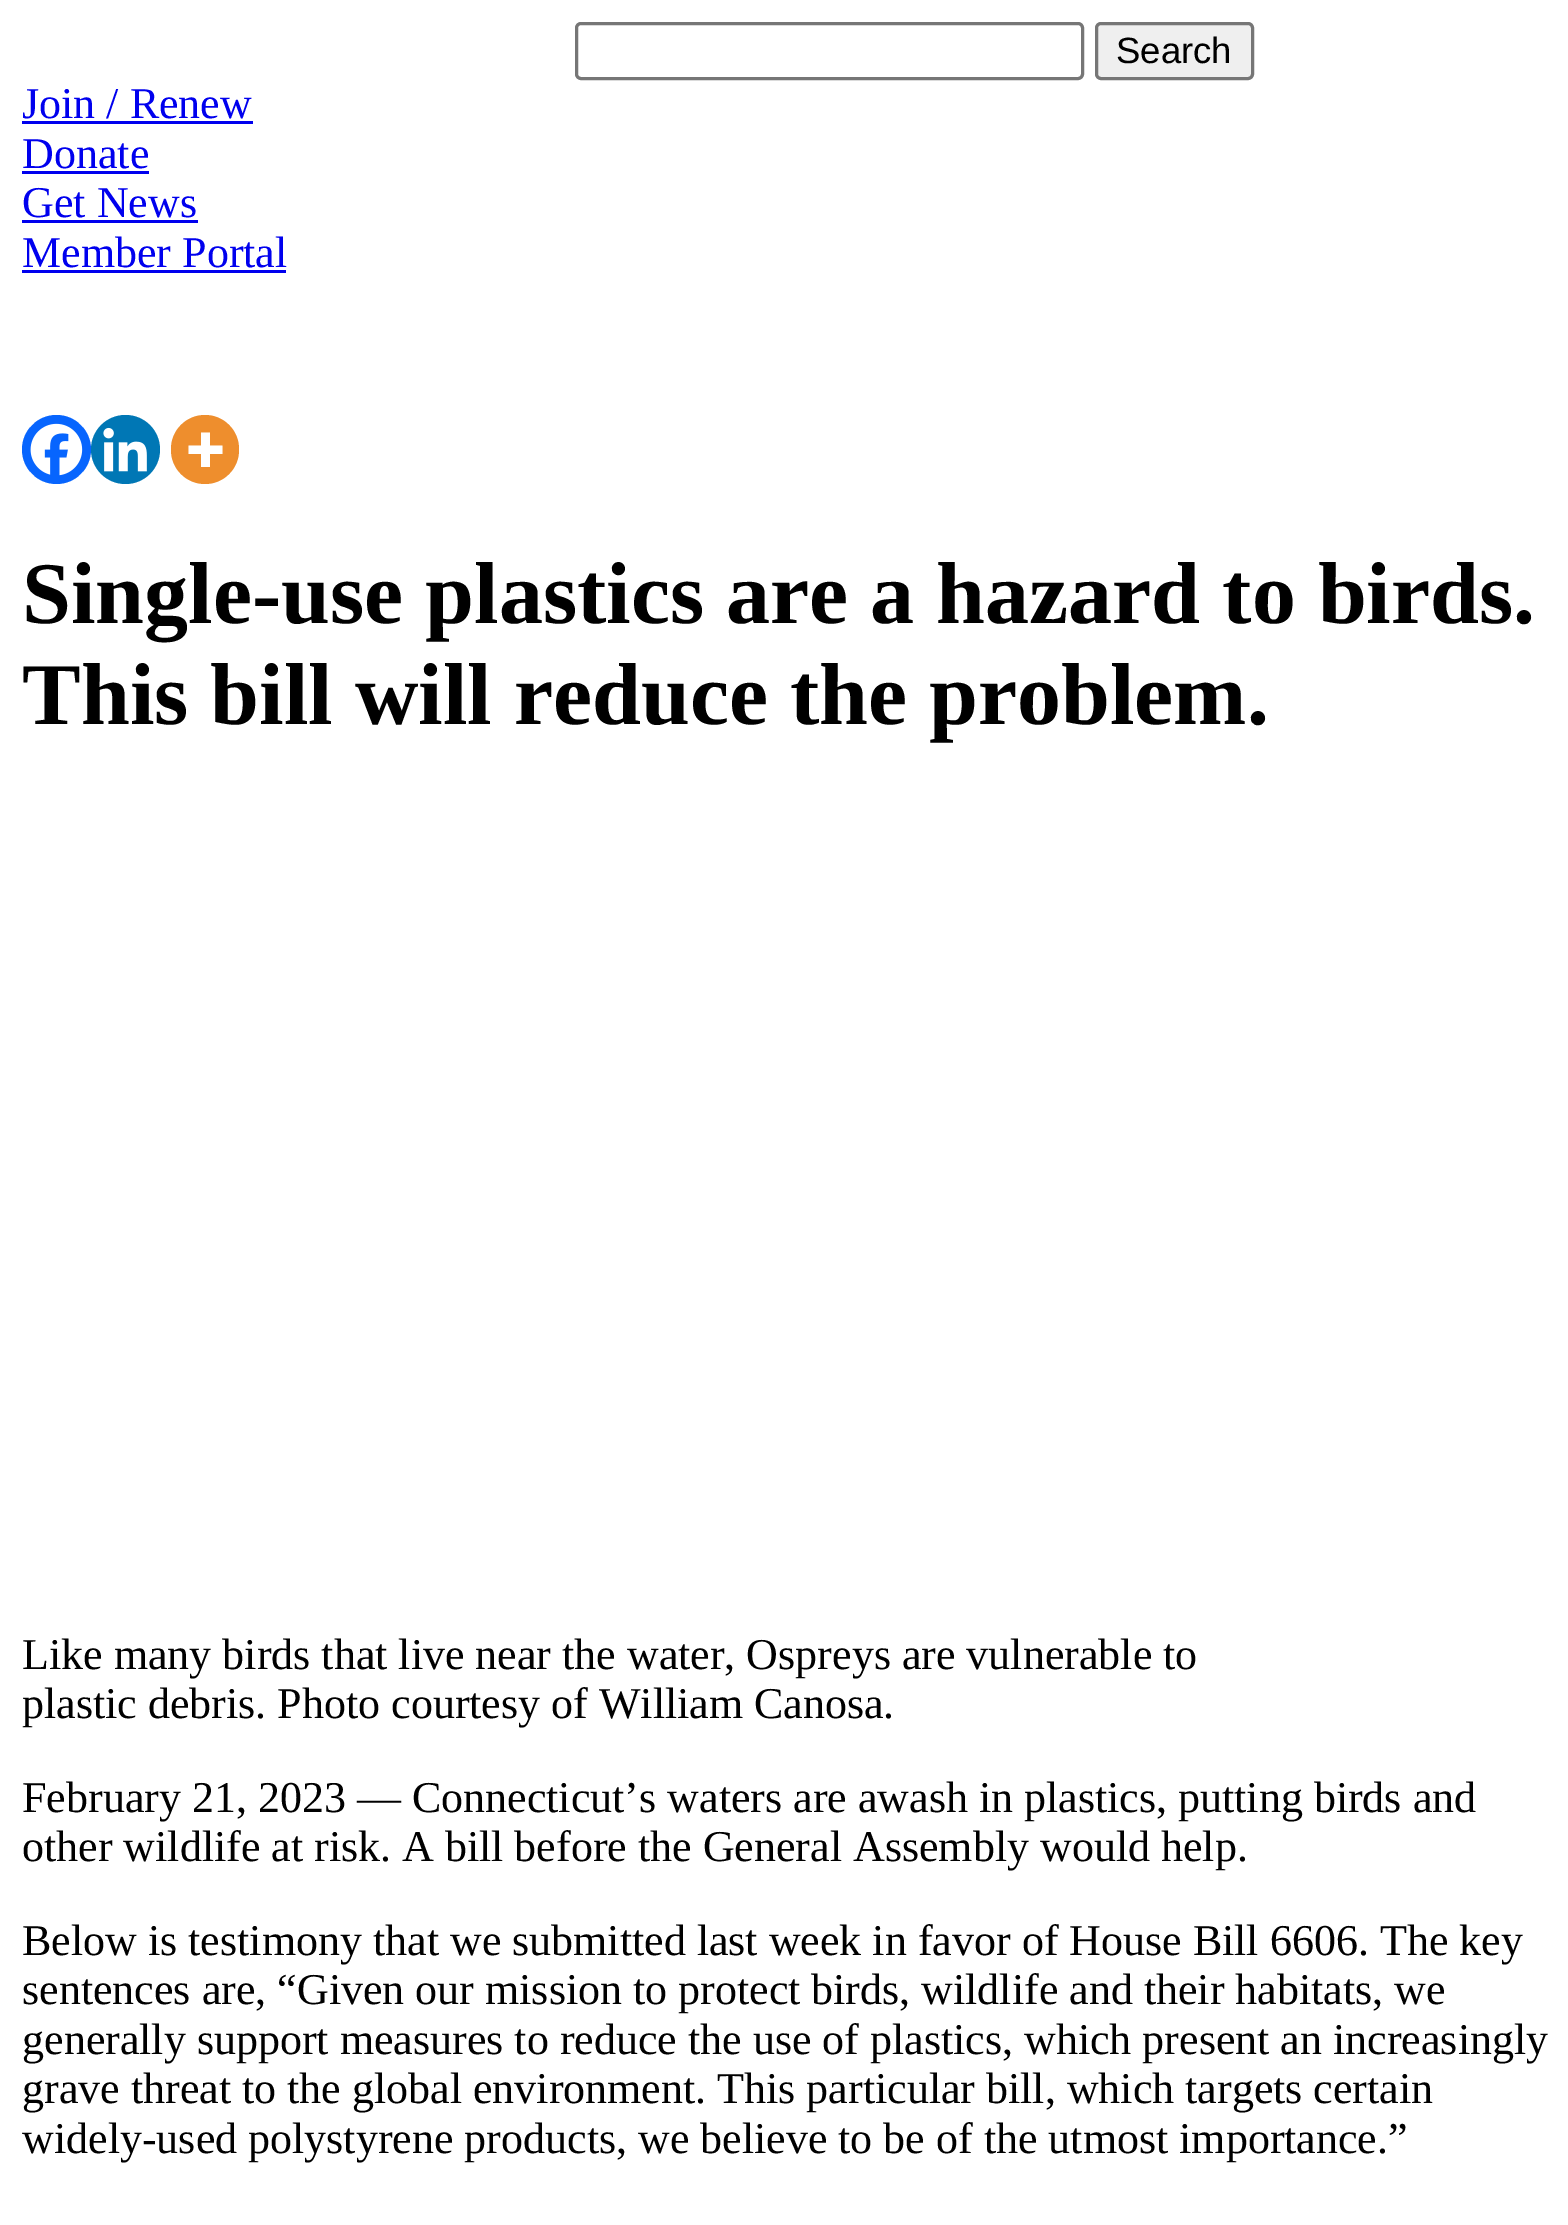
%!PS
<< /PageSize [1568 2225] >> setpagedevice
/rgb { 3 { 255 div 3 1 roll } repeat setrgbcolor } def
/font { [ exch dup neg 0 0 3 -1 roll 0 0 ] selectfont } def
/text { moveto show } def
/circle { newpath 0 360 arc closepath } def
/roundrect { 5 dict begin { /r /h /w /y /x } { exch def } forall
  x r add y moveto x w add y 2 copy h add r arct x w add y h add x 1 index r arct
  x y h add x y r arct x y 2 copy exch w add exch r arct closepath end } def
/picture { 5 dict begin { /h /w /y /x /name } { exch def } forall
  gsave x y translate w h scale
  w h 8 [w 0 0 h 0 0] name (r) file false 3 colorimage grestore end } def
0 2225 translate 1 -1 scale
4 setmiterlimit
255 255 255 rgb
0 0 1568 2225 rectfill
118 118 118 rgb
3 setlinewidth
576.5 23.5 506 55 4.5 roundrect stroke
239 239 239 rgb
1096.5 23.5 156 55 4.5 roundrect gsave fill grestore
118 118 118 rgb
stroke
0 0 238 rgb
22 121 231 3 rectfill
22 171 127 3 rectfill
22 220 176 3 rectfill
22 270 264 3 rectfill
7 101 254 rgb
56.5 449.5 34.5 circle fill
(img_01.rgb) 30 423 53 53 picture
0 119 181 rgb
125.5 449.5 34.5 circle fill
(img_02.rgb) 103 427 44 45 picture
238 142 45 rgb
171 415 68 69 34 roundrect fill
255 255 255 rgb
210 445.5 moveto 0 -13 rlineto -9 0 rlineto 0 13 rlineto -12.5 0 rlineto 0 8.5 rlineto 12.5 0 rlineto 0 13 rlineto 9 0 rlineto 0 -13 rlineto 12.5 0 rlineto 0 -8.5 rlineto closepath eofill
/LiberationSans-Regular 36.5 font
0 0 0 rgb
(Search) 1116 63 text
/LiberationSerif-Regular 44 font
0 0 238 rgb
(Join / Renew) 22 118 text
(Donate) 22 168 text
(Get News) 22 217 text
(Member Portal) 22 267 text
/LiberationSerif-Bold 88 font
0 0 0 rgb
(Single-use plastics are a hazard to birds.) 22 623 text
(This bill will reduce the problem.) 22 724 text
/LiberationSerif-Regular 44 font
(Like many birds that live near the water, Ospreys are vulnerable to) 22 1669 text
(plastic debris. Photo courtesy of William Canosa.) 22 1718 text
(February 21, 2023 — Connecticut’s waters are awash in plastics, putting birds and) 22 1812 text
(other wildlife at risk. A bill before the General Assembly would help.) 22 1861 text
(Below is testimony that we submitted last week in favor of House Bill 6606. The key) 22 1955 text
(sentences are, “Given our mission to protect birds, wildlife and their habitats, we) 22 2004 text
(generally support measures to reduce the use of plastics, which present an increasingly) 22 2054 text
(grave threat to the global environment. This particular bill, which targets certain) 22 2103 text
(widely-used polystyrene products, we believe to be of the utmost importance.”) 22 2153 text
showpage
